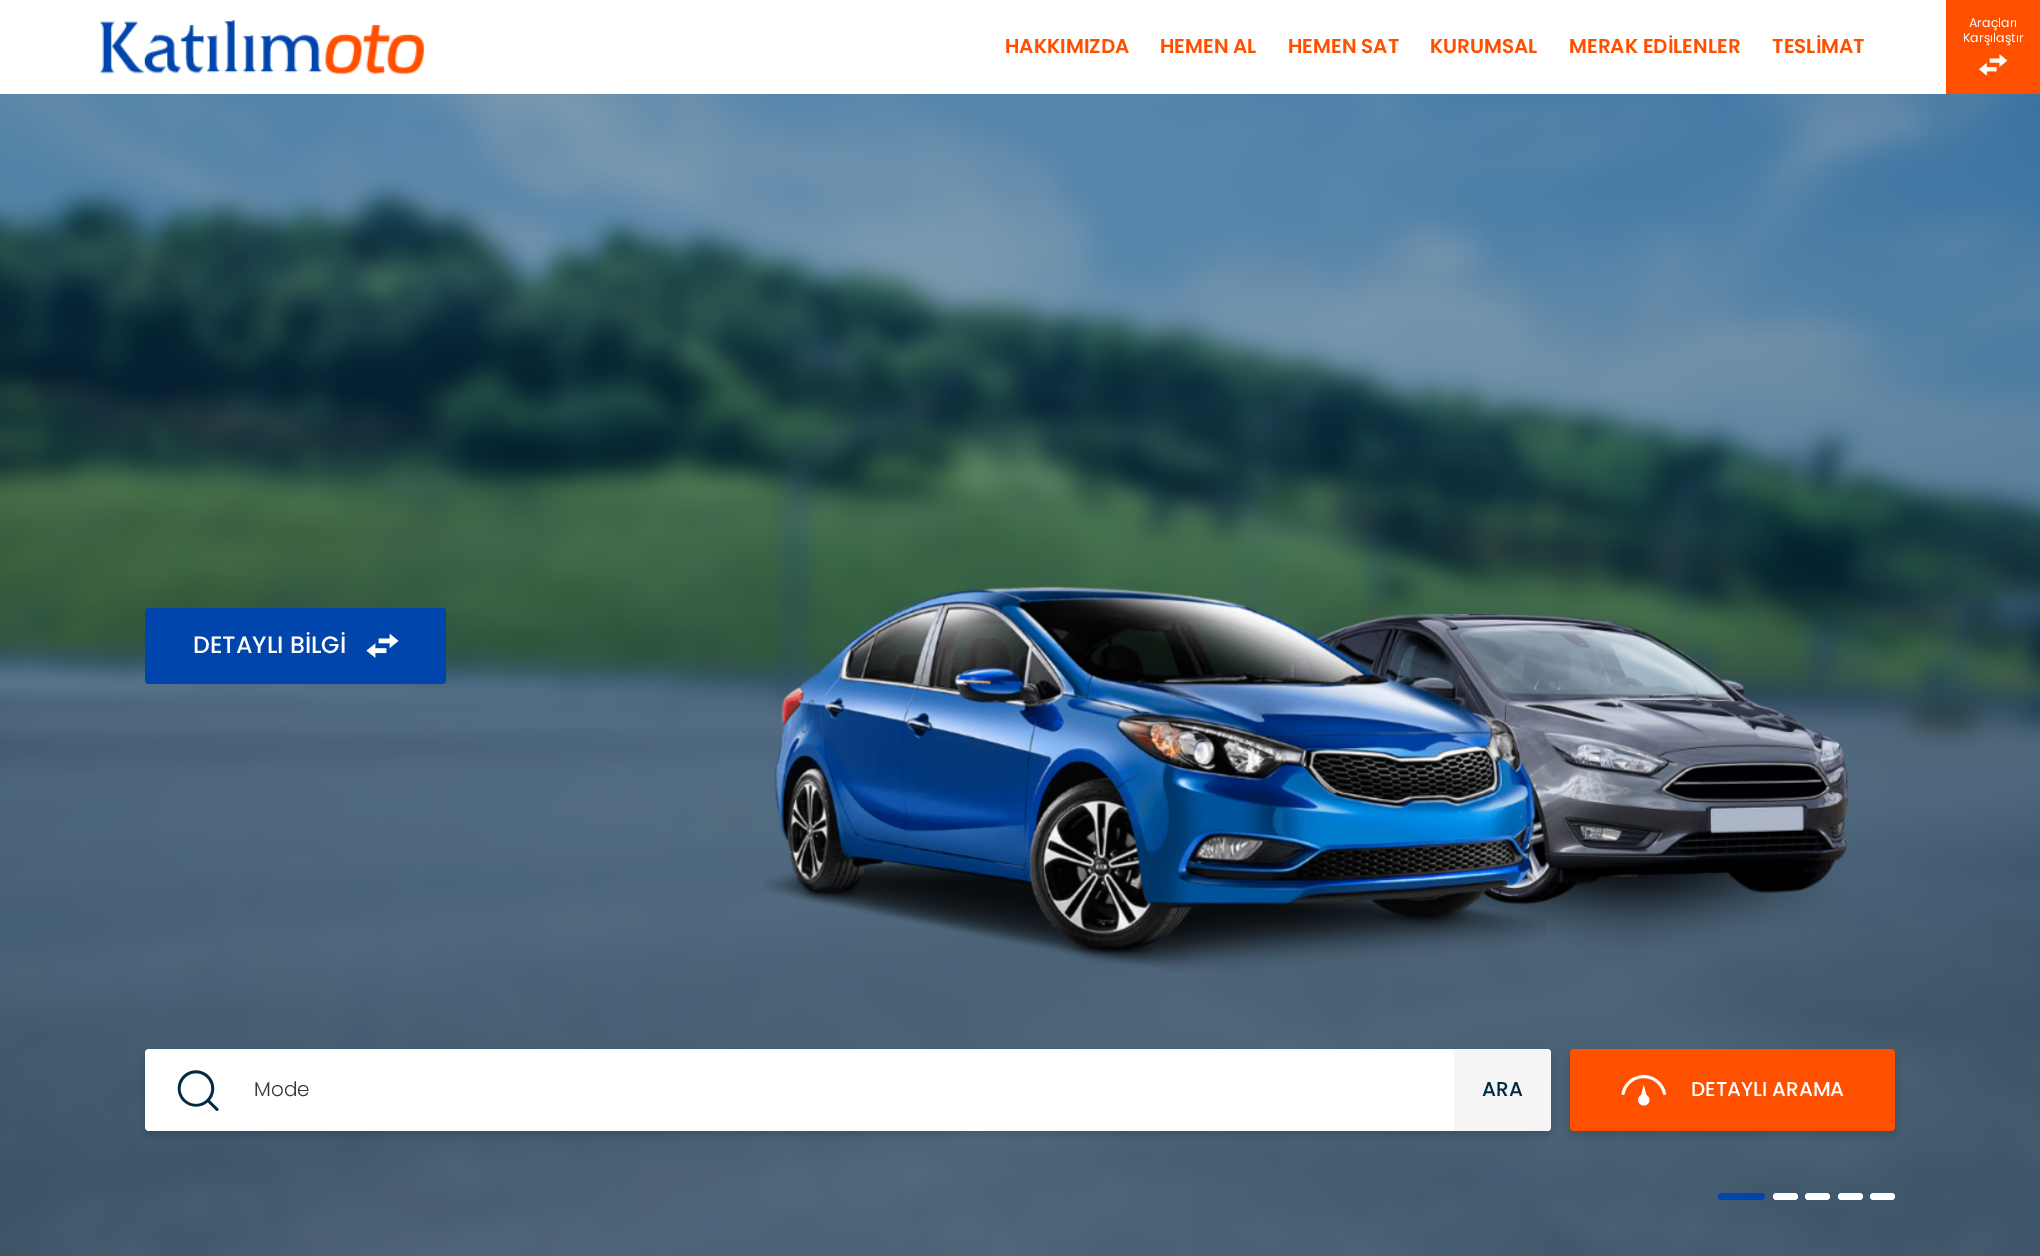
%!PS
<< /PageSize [2040 1256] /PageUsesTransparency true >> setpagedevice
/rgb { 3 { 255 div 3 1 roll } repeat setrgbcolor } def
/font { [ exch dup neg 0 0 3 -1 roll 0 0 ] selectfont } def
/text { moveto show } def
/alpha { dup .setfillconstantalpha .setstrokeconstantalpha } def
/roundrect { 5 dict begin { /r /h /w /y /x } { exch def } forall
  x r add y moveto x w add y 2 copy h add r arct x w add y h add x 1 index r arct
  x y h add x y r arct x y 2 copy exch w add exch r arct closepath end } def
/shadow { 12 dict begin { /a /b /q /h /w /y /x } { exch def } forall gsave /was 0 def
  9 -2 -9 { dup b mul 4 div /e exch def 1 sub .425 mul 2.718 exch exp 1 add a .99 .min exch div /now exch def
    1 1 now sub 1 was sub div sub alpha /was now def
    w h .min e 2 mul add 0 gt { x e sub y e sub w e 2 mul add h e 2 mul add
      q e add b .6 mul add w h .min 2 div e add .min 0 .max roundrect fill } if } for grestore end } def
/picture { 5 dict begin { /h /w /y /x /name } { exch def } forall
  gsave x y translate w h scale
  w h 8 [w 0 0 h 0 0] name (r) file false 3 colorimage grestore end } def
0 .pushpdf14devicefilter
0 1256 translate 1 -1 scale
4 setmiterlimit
255 255 255 rgb
0 0 2040 1256 rectfill
(img_01.rgb) 100 20 324 54 picture
255 80 0 rgb
1946 0 94 94 rectfill
(img_02.rgb) 1979 54 29 22 picture
(img_03.rgb) 0 94 2040 1162 picture
0 69 171 rgb
145 608 301 76 4 roundrect fill
(img_04.rgb) 366 633 33 25 picture
(img_06.rgb) 1256 614 593 332 picture
(img_05.rgb) 763 586 783 386 picture
1718 1193 47 7 3.5 roundrect fill
255 255 255 rgb
1773 1193 25 7 3.5 roundrect fill
1805 1193 25 7 3.5 roundrect fill
1838 1193 25 7 3.5 roundrect fill
1870 1193 25 7 3.5 roundrect fill
0 0 0 rgb
145 1053 1406 82 4 4 0.16 shadow
255 255 255 rgb
145 1049 1406 82 4 roundrect fill
(img_07.rgb) 177 1070 42 41 picture
245 245 245 rgb
1454 1049 moveto 93 0 rlineto 2 0 4 2 4 4 rcurveto 0 74 rlineto 0 2 -2 4 -4 4 rcurveto -93 0 rlineto closepath fill
0 0 0 rgb
1570 1053 325 82 4 4 0.16 shadow
255 80 0 rgb
1570 1049 325 82 4 roundrect fill
(img_08.rgb) 1621 1075 45 31 picture
/Poppins-SemiBold 20 font
(HAKKIMIZDA) 1005 53 text
(HEMEN AL) 1160 53 text
(HEMEN SAT) 1288 53 text
(KURUMSAL) 1430 53 text
(MERAK EDİLENLER) 1569 53 text
(TESLİMAT) 1772 53 text
/Poppins-Regular 12.5 font
255 255 255 rgb
(Araçları) 1969 27 text
(Karşılaştır) 1963 42 text
/Poppins-Medium 23.75 font
(DETAYLI BİLGİ) 193 653 text
/Poppins-Light 20 font
56 56 56 rgb
(Mode) 254 1096 text
/Poppins-Medium 20 font
0 41 67 rgb
(ARA) 1482 1096 text
255 255 255 rgb
(DETAYLI ARAMA) 1691 1096 text
.poppdf14devicefilter showpage
